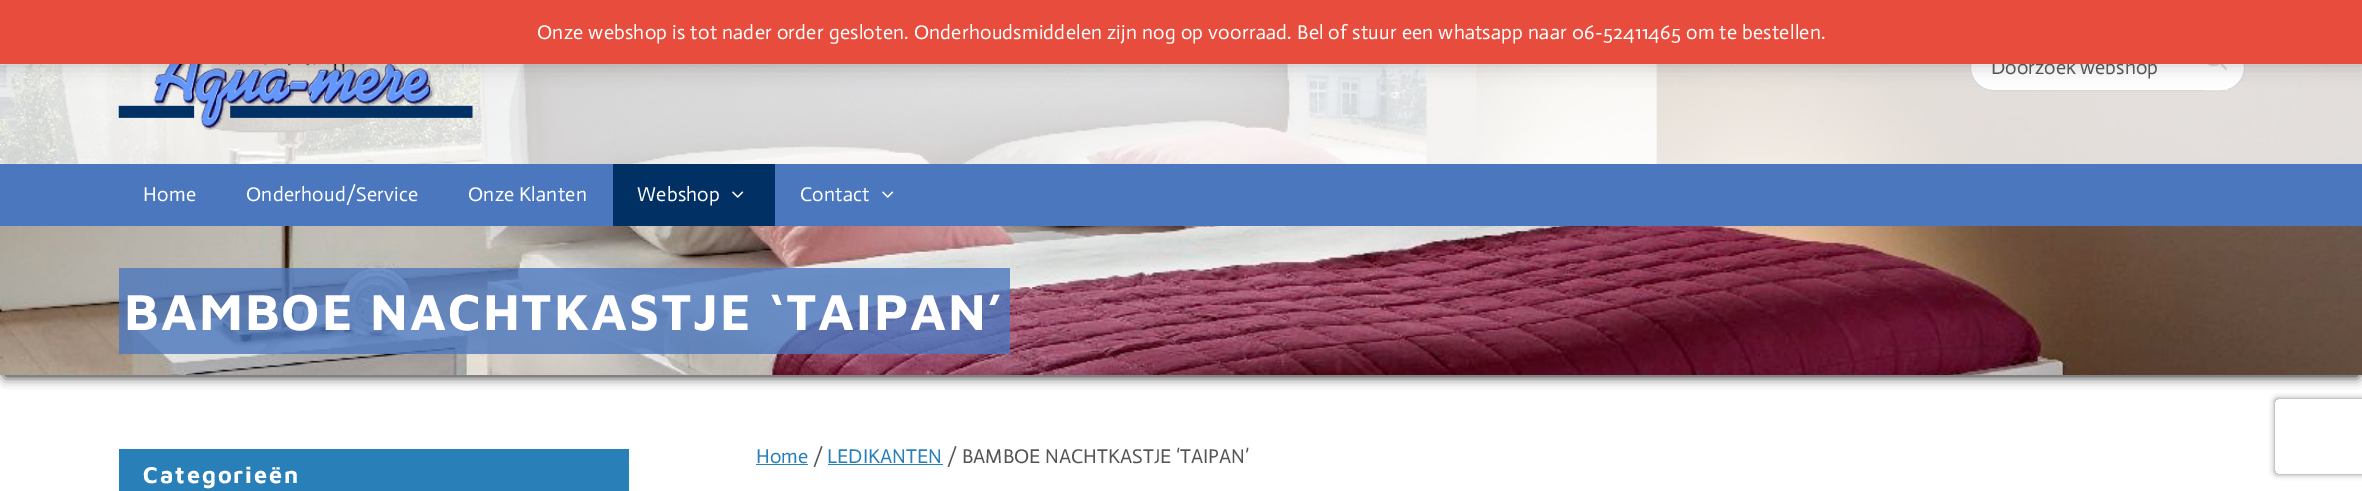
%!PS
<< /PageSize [2362 491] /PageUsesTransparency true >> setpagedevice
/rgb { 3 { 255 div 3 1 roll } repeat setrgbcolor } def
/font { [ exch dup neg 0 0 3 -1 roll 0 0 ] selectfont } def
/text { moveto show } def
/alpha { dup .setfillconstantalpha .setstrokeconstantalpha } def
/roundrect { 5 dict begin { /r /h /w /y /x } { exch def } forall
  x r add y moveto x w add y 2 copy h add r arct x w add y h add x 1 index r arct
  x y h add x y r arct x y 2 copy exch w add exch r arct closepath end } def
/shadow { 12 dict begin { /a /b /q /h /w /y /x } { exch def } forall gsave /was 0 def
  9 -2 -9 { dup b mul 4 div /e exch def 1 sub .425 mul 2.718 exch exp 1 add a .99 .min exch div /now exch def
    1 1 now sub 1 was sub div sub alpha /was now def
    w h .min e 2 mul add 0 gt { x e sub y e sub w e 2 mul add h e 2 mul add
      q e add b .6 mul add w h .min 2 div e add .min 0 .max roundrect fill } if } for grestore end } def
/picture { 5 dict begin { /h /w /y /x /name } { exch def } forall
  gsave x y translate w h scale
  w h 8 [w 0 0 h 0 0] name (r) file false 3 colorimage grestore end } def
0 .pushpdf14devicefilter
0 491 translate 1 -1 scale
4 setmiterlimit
255 255 255 rgb
0 0 2362 491 rectfill
0 0 0 rgb
5 11 2353 365 0 6 1 shadow
(img_01.rgb) 0 64 2362 311 picture
0.8 alpha
255 255 255 rgb
0 64 2362 100 rectfill
1 alpha
(img_02.rgb) 118 64 355 66 picture
1970.5 44.5 274 46 23 roundrect gsave fill grestore
216 216 216 rgb
stroke
255 255 255 rgb
2203 90 moveto -6 -13 -6 -32 0 -45 rcurveto 8 0 17 -1 24 1 rcurveto 6 13 6 30 0 43 rcurveto -7 2 -16 1 -24 1 rcurveto closepath fill
gsave
1971 45 273 45 22.5 roundrect clip newpath
1.2 setlinewidth
2215 35.5 moveto 20.5 0 20.5 64 0 64 rcurveto -20.5 0 -20.5 -64 0 -64 rcurveto closepath stroke
grestore
220 220 220 rgb
1.9 setlinewidth
1 setlinecap
1 setlinejoin
2226 69 moveto -6 -6.5 rlineto 2220 62.5 moveto 8.5 -9 -5 -22 -13.5 -13.5 rcurveto -8.5 8.5 4.5 22 13.5 13.5 rcurveto closepath stroke
0 0 0 rgb
0 1 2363 64 0 10 0.2 shadow
75 119 190 rgb
0 164 2362 62 rectfill
0 48 100 rgb
613 164 162 62 rectfill
(img_03.rgb) 732 191 12 7 picture
(img_04.rgb) 882 191 12 7 picture
0.8 alpha
75 119 190 rgb
119 268 891 86 rectfill
1 alpha
41 128 185 rgb
756 464 52 1 rectfill
828 464 115 1 rectfill
119 449 510 42 rectfill
gsave
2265 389 moveto 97 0 rlineto 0 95 rlineto -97 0 rlineto closepath 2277.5 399 moveto 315 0 rlineto 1.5 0 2.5 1 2.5 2.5 rcurveto 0 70 rlineto 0 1.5 -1 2.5 -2.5 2.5 rcurveto -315 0 rlineto -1.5 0 -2.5 -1 -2.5 -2.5 rcurveto 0 -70 rlineto 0 -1.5 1 -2.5 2.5 -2.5 rcurveto closepath eoclip newpath
128 128 128 rgb
2275 399 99 75 2.5 3 1 shadow
grestore
/Actor-Regular 20 font
85 85 85 rgb
(Doorzoek webshop) 1991 74 text
231 76 60 rgb
0 0 2362 64 rectfill
255 255 255 rgb
537 39 moveto 0.25 0 (Onze webshop is tot nader order gesloten. Onderhoudsmiddelen zijn nog op voorraad. Bel of stuur een whatsapp naar 06-52411465 om te bestellen.) ashow
143 201 moveto 0.25 0 (Home) ashow
246 201 moveto 0.25 0 (Onderhoud/Service) ashow
468 201 moveto 0.25 0 (Onze Klanten) ashow
637 201 moveto 0.25 0 (Webshop) ashow
800 201 moveto 0.25 0 (Contact) ashow
/MavenPro-Bold 52 font
124 330 moveto 1.9 0 (BAMBOE NACHTKASTJE ‘TAIPAN’) ashow
/Actor-Regular 20 font
41 128 185 rgb
(Home) 756 463 text
85 85 85 rgb
(/) 813 463 text
41 128 185 rgb
(LEDIKANTEN) 827 463 text
85 85 85 rgb
(/ BAMBOE NACHTKASTJE ‘TAIPAN’) 947 463 text
/MavenPro-Bold 23.5 font
255 255 255 rgb
143 483 moveto 1.9 0 (Categorieën) ashow
.poppdf14devicefilter showpage
